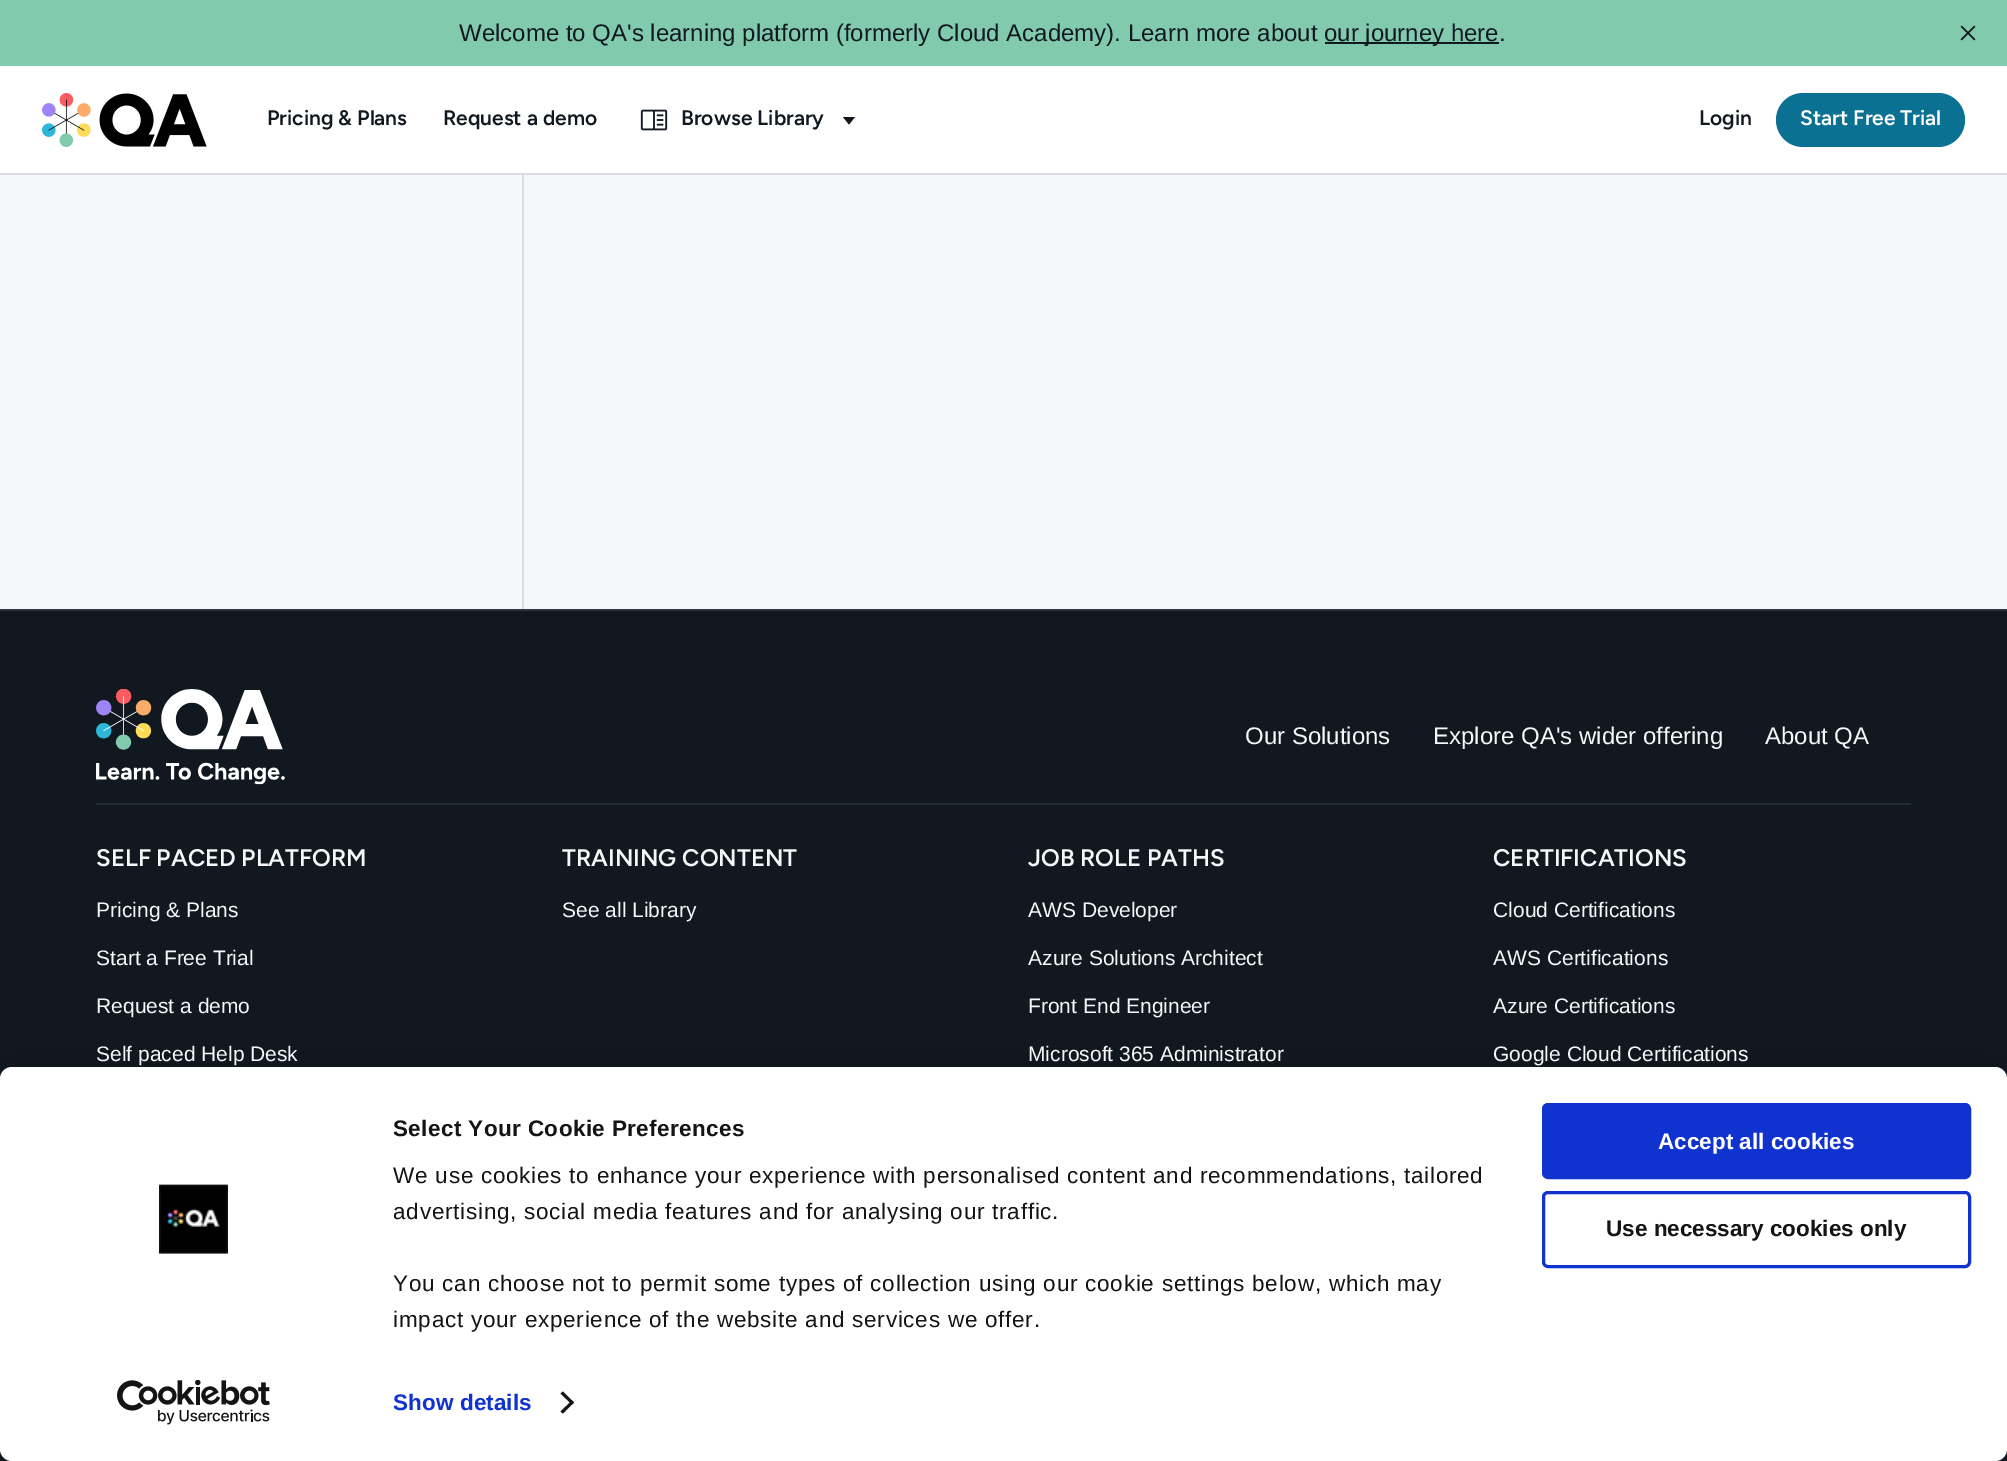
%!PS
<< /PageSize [2007 1461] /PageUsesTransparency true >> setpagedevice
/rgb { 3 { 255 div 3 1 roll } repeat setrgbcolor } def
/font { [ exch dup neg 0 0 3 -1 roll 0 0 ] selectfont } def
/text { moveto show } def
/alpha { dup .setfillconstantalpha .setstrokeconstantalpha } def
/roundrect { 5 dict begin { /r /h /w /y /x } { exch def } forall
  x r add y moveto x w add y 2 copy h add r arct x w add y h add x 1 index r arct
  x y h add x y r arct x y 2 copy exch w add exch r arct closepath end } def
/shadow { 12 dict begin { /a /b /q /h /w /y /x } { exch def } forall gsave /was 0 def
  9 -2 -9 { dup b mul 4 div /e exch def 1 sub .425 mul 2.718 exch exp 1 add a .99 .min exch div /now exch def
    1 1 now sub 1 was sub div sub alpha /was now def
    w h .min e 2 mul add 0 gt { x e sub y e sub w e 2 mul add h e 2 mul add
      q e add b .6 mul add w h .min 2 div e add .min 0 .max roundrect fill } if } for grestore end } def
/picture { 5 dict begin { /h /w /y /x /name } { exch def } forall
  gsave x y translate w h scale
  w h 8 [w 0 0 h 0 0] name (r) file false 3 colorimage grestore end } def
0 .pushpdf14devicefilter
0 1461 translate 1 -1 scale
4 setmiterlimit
246 247 248 rgb
0 0 2007 1461 rectfill
130 202 174 rgb
0 0 2007 66 rectfill
17 24 32 rgb
1325 42 174 2 rectfill
(img_01.rgb) 1960 25 16 16 picture
255 255 255 rgb
0 66 2007 107 rectfill
218 222 227 rgb
0 173 2007 2 rectfill
(img_02.rgb) 42 93 165 54 picture
(img_03.rgb) 640 109 28 22 picture
17 24 32 rgb
855 117 moveto -6 7.5 rlineto -6 -7.5 rlineto closepath fill
11 113 146 rgb
1776 93 189 54 27 roundrect fill
218 222 227 rgb
522 175 2 434 rectfill
17 24 32 rgb
0 611 2007 850 rectfill
44 52 62 rgb
0 609 2007 2 rectfill
(img_04.rgb) 96 689 189 96 picture
35 43 52 rgb
96 803 1815 2 rectfill
0 0 0 rgb
0 1112 2007 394 12 52.5 0.3 shadow
255 255 255 rgb
0 1067 2007 394 12 roundrect fill
(img_05.rgb) 159 1184 69 70 picture
(img_06.rgb) 117 1380 153 45 picture
20 20 20 rgb
563 1391.5 moveto 11 11 rlineto -2 2 rlineto -11.5 -11 rlineto closepath fill
572 1400.5 moveto 2 2 rlineto -11 11 rlineto -2.5 -2 rlineto closepath fill
16 50 207 rgb
1543.5 1104.5 426 73 4.5 roundrect gsave fill grestore
3 setlinewidth
stroke
1543.5 1192.5 426 74 4.5 roundrect stroke
/LiberationSans-Regular 24 font
17 24 32 rgb
(Welcome to QA's learning platform \(formerly Cloud Academy\). Learn more about) 459 41 text
(our journey here.) 1324 41 text
/Figtree-SemiBold 21 font
(Pricing & Plans) 267 125 text
(Request a demo) 443 125 text
(Browse Library) 681 125 text
(Login) 1699 125 text
255 255 255 rgb
(Start Free Trial) 1800 125 text
/LiberationSans-Regular 24 font
246 247 248 rgb
(Our Solutions) 1245 744 text
(Explore QA's wider offering) 1433 744 text
(About QA) 1765 744 text
/Figtree-SemiBold 24 font
(SELF PACED PLATFORM) 96 866 text
/LiberationSans-Regular 21 font
(Pricing & Plans) 96 917 text
(Start a Free Trial) 96 965 text
(Request a demo) 96 1013 text
(Self paced Help Desk) 96 1061 text
/Figtree-SemiBold 24 font
(TRAINING CONTENT) 562 866 text
/LiberationSans-Regular 21 font
(See all Library) 562 917 text
/Figtree-SemiBold 24 font
(JOB ROLE PATHS) 1028 866 text
/LiberationSans-Regular 21 font
(AWS Developer) 1028 917 text
(Azure Solutions Architect) 1028 965 text
(Front End Engineer) 1028 1013 text
(Microsoft 365 Administrator) 1028 1061 text
/Figtree-SemiBold 24 font
(CERTIFICATIONS) 1493 866 text
/LiberationSans-Regular 21 font
(Cloud Certifications) 1493 917 text
(AWS Certifications) 1493 965 text
(Azure Certifications) 1493 1013 text
(Google Cloud Certifications) 1493 1061 text
/LiberationSans-Bold 22.5 font
20 20 20 rgb
393 1136 moveto 0.4 0 (Select Your Cookie Preferences) ashow
/LiberationSans-Regular 22.5 font
393 1183 moveto 0.75 0 (We use cookies to enhance your experience with personalised content and recommendations, tailored) ashow
393 1219 moveto 0.75 0 (advertising, social media features and for analysing our traffic.) ashow
393 1291 moveto 0.75 0 (You can choose not to permit some types of collection using our cookie settings below, which may) ashow
393 1327 moveto 0.75 0 (impact your experience of the website and services we offer.) ashow
/LiberationSans-Bold 22.5 font
16 50 207 rgb
393 1410 moveto 0.1 0 (Show details) ashow
255 255 255 rgb
(Accept all cookies) 1658 1149 text
20 20 20 rgb
(Use necessary cookies only) 1606 1236 text
.poppdf14devicefilter showpage
